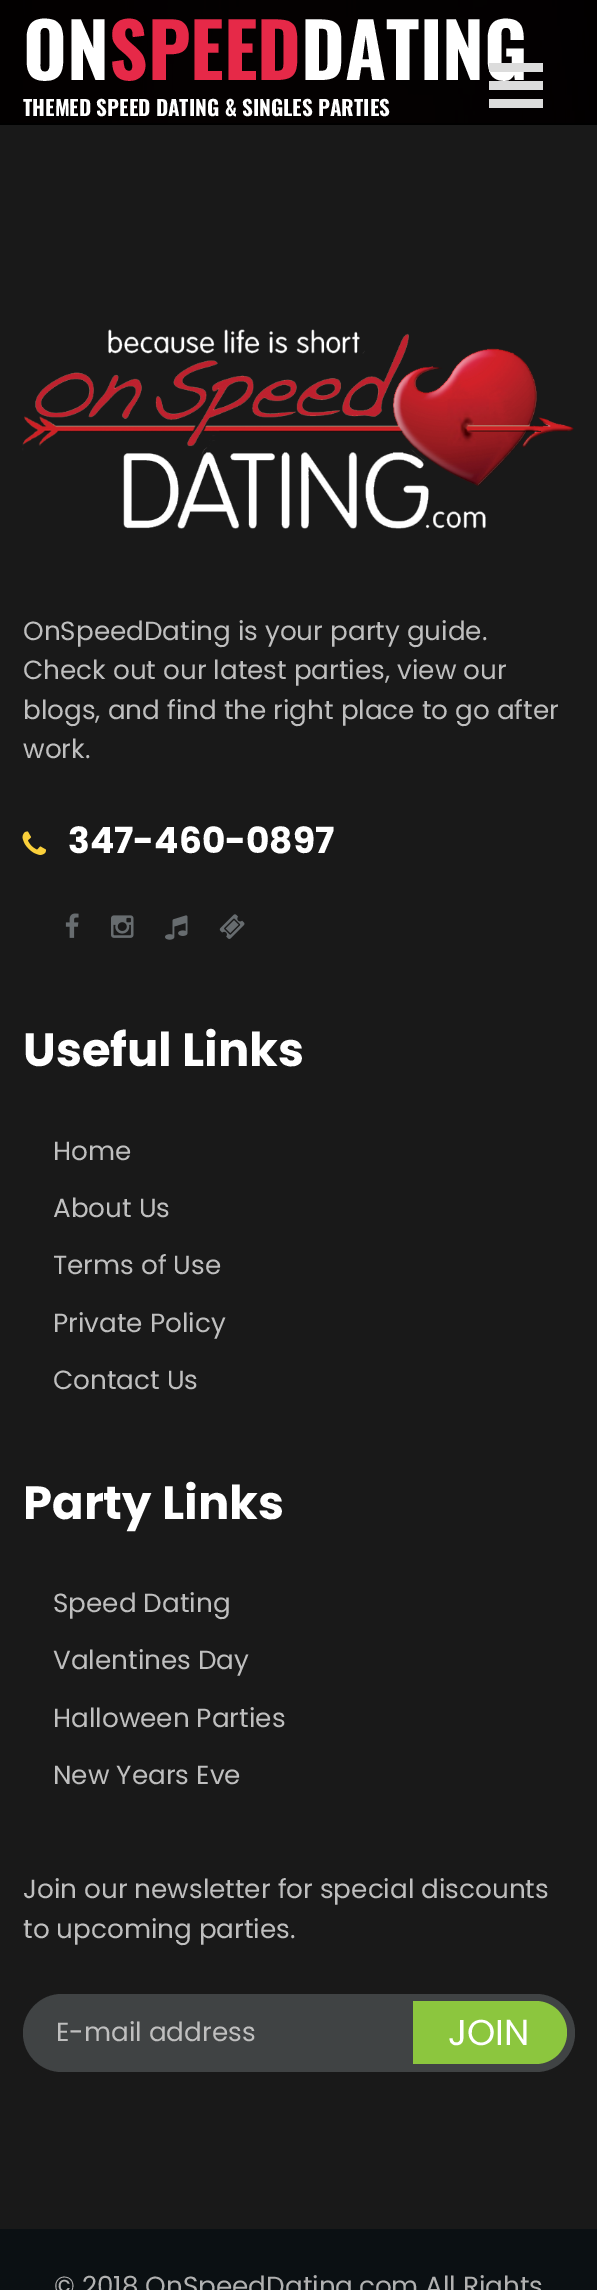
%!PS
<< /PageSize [597 2290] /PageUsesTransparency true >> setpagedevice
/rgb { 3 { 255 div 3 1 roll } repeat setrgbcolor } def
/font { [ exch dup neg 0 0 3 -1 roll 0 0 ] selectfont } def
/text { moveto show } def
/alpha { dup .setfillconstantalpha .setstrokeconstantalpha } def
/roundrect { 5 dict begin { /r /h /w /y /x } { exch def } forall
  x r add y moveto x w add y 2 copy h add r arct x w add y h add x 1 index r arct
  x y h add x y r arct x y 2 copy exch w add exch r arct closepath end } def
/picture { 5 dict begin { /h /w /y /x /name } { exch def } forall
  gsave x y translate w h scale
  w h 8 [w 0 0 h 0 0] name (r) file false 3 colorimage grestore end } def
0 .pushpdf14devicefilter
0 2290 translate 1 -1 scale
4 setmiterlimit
255 255 255 rgb
0 0 597 2290 rectfill
(img_01.rgb) 0 0 597 123 picture
0.98 alpha
0 0 0 rgb
0 0 597 123 rectfill
1 alpha
0 123 597 2 rectfill
220 220 220 rgb
489 81 54 9 rectfill
489 99 54 9 rectfill
25 25 25 rgb
0 125 597 2104 rectfill
(img_02.rgb) 22 329 552 200 picture
(img_03.rgb) 22 831 24 24 picture
(img_04.rgb) 65 913 14 25 picture
(img_05.rgb) 111 915 23 23 picture
(img_06.rgb) 165 915 23 25 picture
(img_07.rgb) 219 914 26 25 picture
64 67 68 rgb
23 1994 552 78 39 roundrect fill
140 198 62 rgb
411 2001 moveto 124.5 0 rlineto 17.5 0 31.5 14 31.5 31.5 rcurveto 0 17.5 -14 31.5 -31.5 31.5 rcurveto -124.5 0 rlineto closepath fill
64 67 68 rgb
76.5 2001 moveto 336.5 0 rlineto 0 63 rlineto -336.5 0 rlineto -17.5 0 -31.5 -14 -31.5 -31.5 rcurveto 0 -17.5 14 -31.5 31.5 -31.5 rcurveto closepath fill
11 16 19 rgb
0 2229 597 61 rectfill
/Oswald-Bold 75 font
255 255 255 rgb
(ON) 23 80 text
230 41 72 rgb
(SPEED) 109 80 text
255 255 255 rgb
(DATING) 301 80 text
/Oswald-Bold 21 font
(THEMED SPEED DATING & SINGLES PARTIES) 23 116 text
220 220 220 rgb
489 63 54 9 rectfill
/Poppins-Regular 26.25 font
191 191 191 rgb
(OnSpeedDating is your party guide.) 23 640 text
(Check out our latest parties, view our) 23 679 text
(blogs, and find the right place to go after) 23 719 text
(work.) 23 758 text
/Poppins-Bold 36 font
255 255 255 rgb
(347-460-0897) 68 853 text
/Poppins-Bold 46.5 font
(Useful Links) 23 1066 text
/Poppins-Regular 26.25 font
191 191 191 rgb
(Home) 53 1160 text
(About Us) 53 1217 text
(Terms of Use) 53 1274 text
(Private Policy) 53 1332 text
(Contact Us) 53 1389 text
/Poppins-Bold 46.5 font
255 255 255 rgb
(Party Links) 23 1519 text
/Poppins-Regular 26.25 font
191 191 191 rgb
(Speed Dating) 53 1612 text
(Valentines Day) 53 1669 text
(Halloween Parties) 53 1727 text
(New Years Eve) 53 1784 text
(Join our newsletter for special discounts) 23 1898 text
(to upcoming parties.) 23 1938 text
(E-mail address) 56 2041 text
/Poppins-Regular 36 font
255 255 255 rgb
(JOIN) 448 2045 text
/Poppins-Regular 26.25 font
177 177 177 rgb
(© 2018 OnSpeedDating.com All Rights) 54 2295 text
.poppdf14devicefilter showpage
